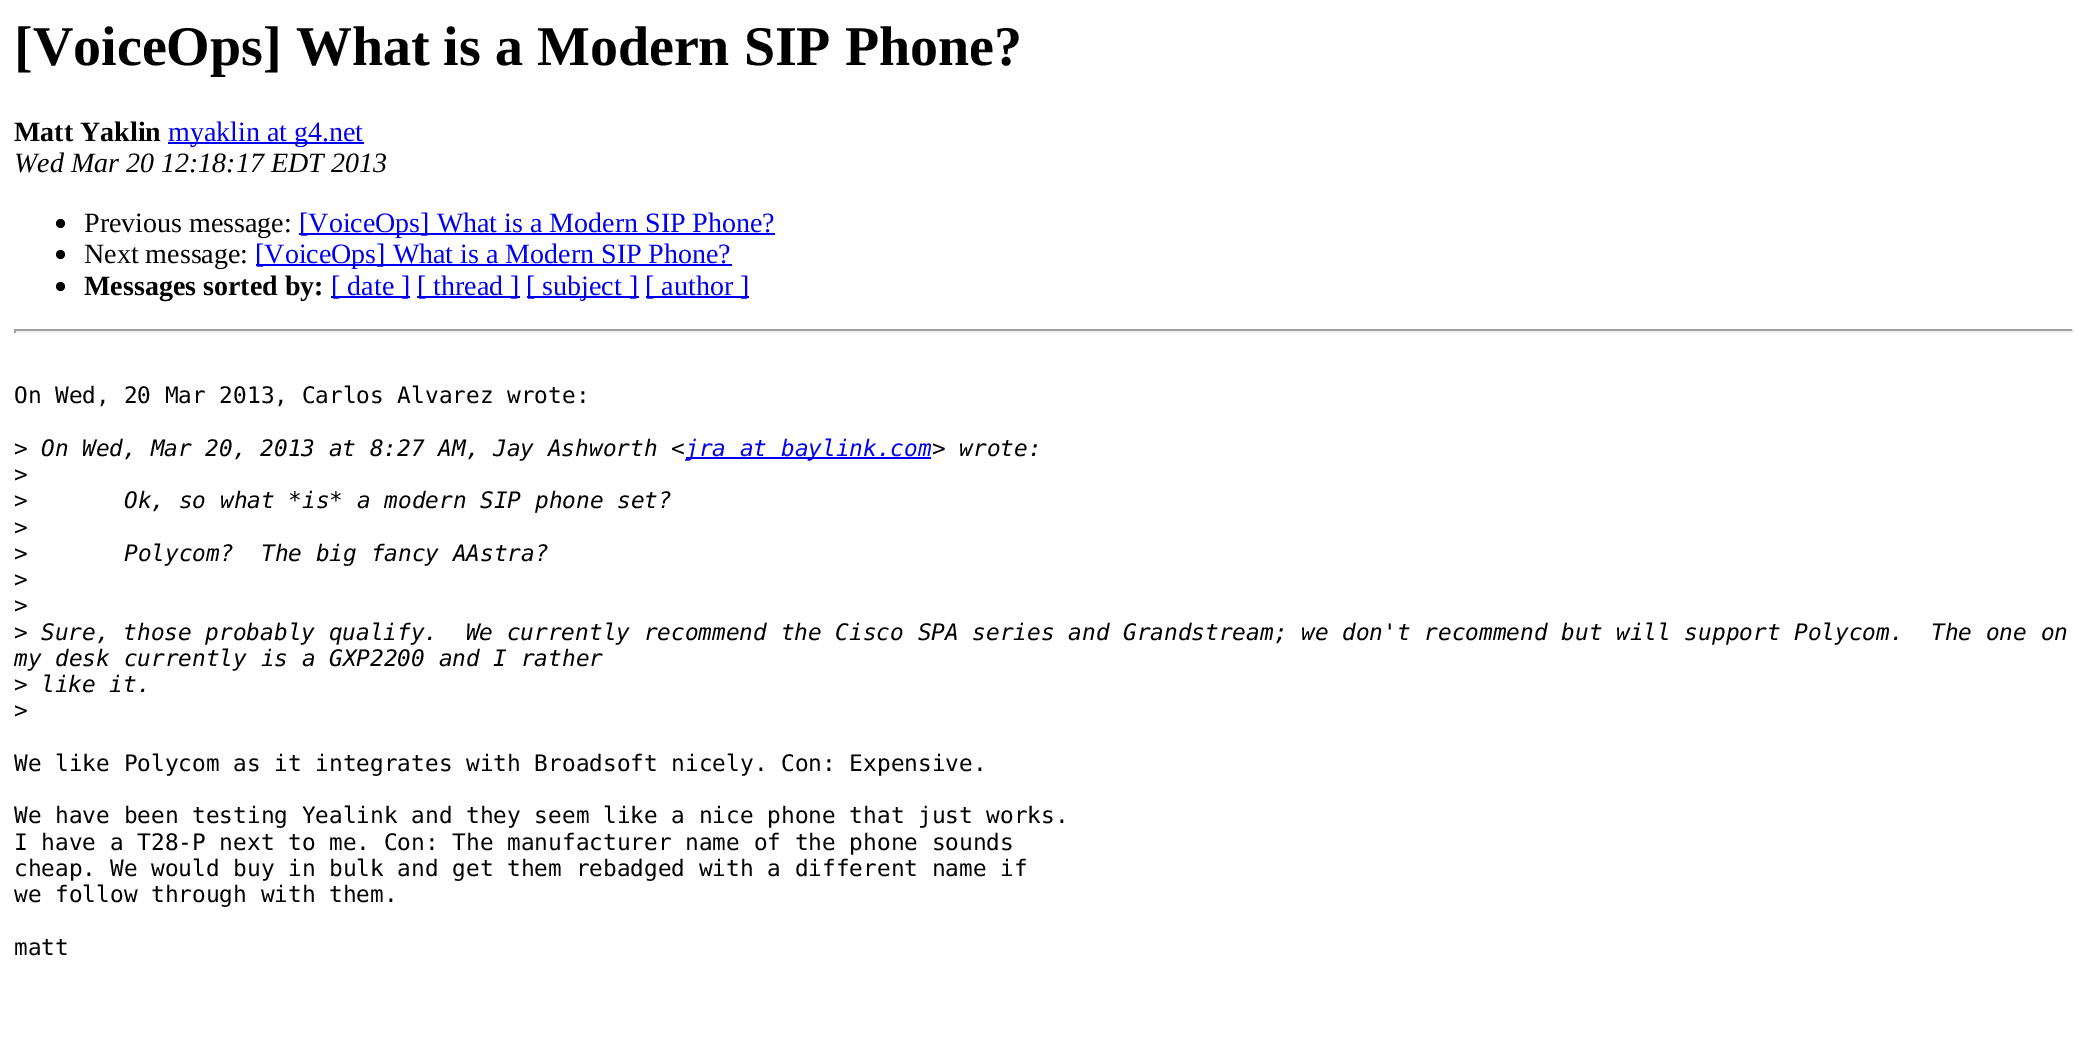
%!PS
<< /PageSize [2087 1047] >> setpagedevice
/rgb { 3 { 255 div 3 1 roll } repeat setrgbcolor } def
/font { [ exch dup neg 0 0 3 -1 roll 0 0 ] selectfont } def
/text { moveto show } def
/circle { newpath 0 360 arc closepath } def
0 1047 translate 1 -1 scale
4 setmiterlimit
255 255 255 rgb
0 0 2087 1047 rectfill
0 0 238 rgb
168 142 196 2 rectfill
0 0 0 rgb
60.5 223.5 4.5 circle fill
0 0 238 rgb
299 233 476 2 rectfill
0 0 0 rgb
60.5 254.5 4.5 circle fill
0 0 238 rgb
256 264 476 2 rectfill
0 0 0 rgb
60.5 286.5 4.5 circle fill
0 0 238 rgb
331 296 79 2 rectfill
417 296 103 2 rectfill
527 296 112 2 rectfill
646 296 103 2 rectfill
159 159 159 rgb
14 329 2060 2 rectfill
238 238 238 rgb
2072 329 2 4 rectfill
14 331 2060 2 rectfill
159 159 159 rgb
14 329 2 4 rectfill
0 0 238 rgb
686 457 245 2 rectfill
/LiberationSerif-Bold 56 font
0 0 0 rgb
([VoiceOps] What is a Modern SIP Phone?) 14 65 text
/LiberationSerif-Bold 28 font
(Matt Yaklin) 14 141 text
/LiberationSerif-Regular 28 font
0 0 238 rgb
(myaklin at g4.net) 168 141 text
/LiberationSerif-Italic 28 font
0 0 0 rgb
(Wed Mar 20 12:18:17 EDT 2013) 14 172 text
/LiberationSerif-Regular 28 font
(Previous message:) 84 232 text
0 0 238 rgb
([VoiceOps] What is a Modern SIP Phone?) 299 232 text
0 0 0 rgb
(Next message:) 84 263 text
0 0 238 rgb
([VoiceOps] What is a Modern SIP Phone?) 255 263 text
/LiberationSerif-Bold 28 font
0 0 0 rgb
(Messages sorted by:) 84 295 text
/LiberationSerif-Regular 28 font
0 0 238 rgb
([ date ]) 331 295 text
([ thread ]) 417 295 text
([ subject ]) 526 295 text
([ author ]) 645 295 text
/DejaVuSansMono-Regular 22.75 font
0 0 0 rgb
(On Wed, 20 Mar 2013, Carlos Alvarez wrote:) 14 403 text
(>) 14 456 text
/DejaVuSansMono-Italic 22.75 font
(On Wed, Mar 20, 2013 at 8:27 AM, Jay Ashworth <) 41 456 text
0 0 238 rgb
(jra at baylink.com) 685 456 text
0 0 0 rgb
(> wrote:) 932 456 text
/DejaVuSansMono-Regular 22.75 font
(>) 14 482 text
(>) 14 508 text
/DejaVuSansMono-Italic 22.75 font
(Ok, so what *is* a modern SIP phone set?) 124 508 text
/DejaVuSansMono-Regular 22.75 font
(>) 14 535 text
(>) 14 561 text
/DejaVuSansMono-Italic 22.75 font
(Polycom?  The big fancy AAstra?) 124 561 text
/DejaVuSansMono-Regular 22.75 font
(>) 14 587 text
(>) 14 613 text
(>) 14 640 text
/DejaVuSansMono-Italic 22.75 font
(Sure, those probably qualify.  We currently recommend the Cisco SPA series and Grandstream; we don't recommend but will support Polycom.  The one on) 41 640 text
(my desk currently is a GXP2200 and I rather) 14 666 text
/DejaVuSansMono-Regular 22.75 font
(>) 14 692 text
/DejaVuSansMono-Italic 22.75 font
(like it.) 41 692 text
/DejaVuSansMono-Regular 22.75 font
(>) 14 718 text
(We like Polycom as it integrates with Broadsoft nicely. Con: Expensive.) 14 771 text
(We have been testing Yealink and they seem like a nice phone that just works.) 14 823 text
(I have a T28-P next to me. Con: The manufacturer name of the phone sounds) 14 850 text
(cheap. We would buy in bulk and get them rebadged with a different name if) 14 876 text
(we follow through with them.) 14 902 text
(matt) 14 955 text
showpage
